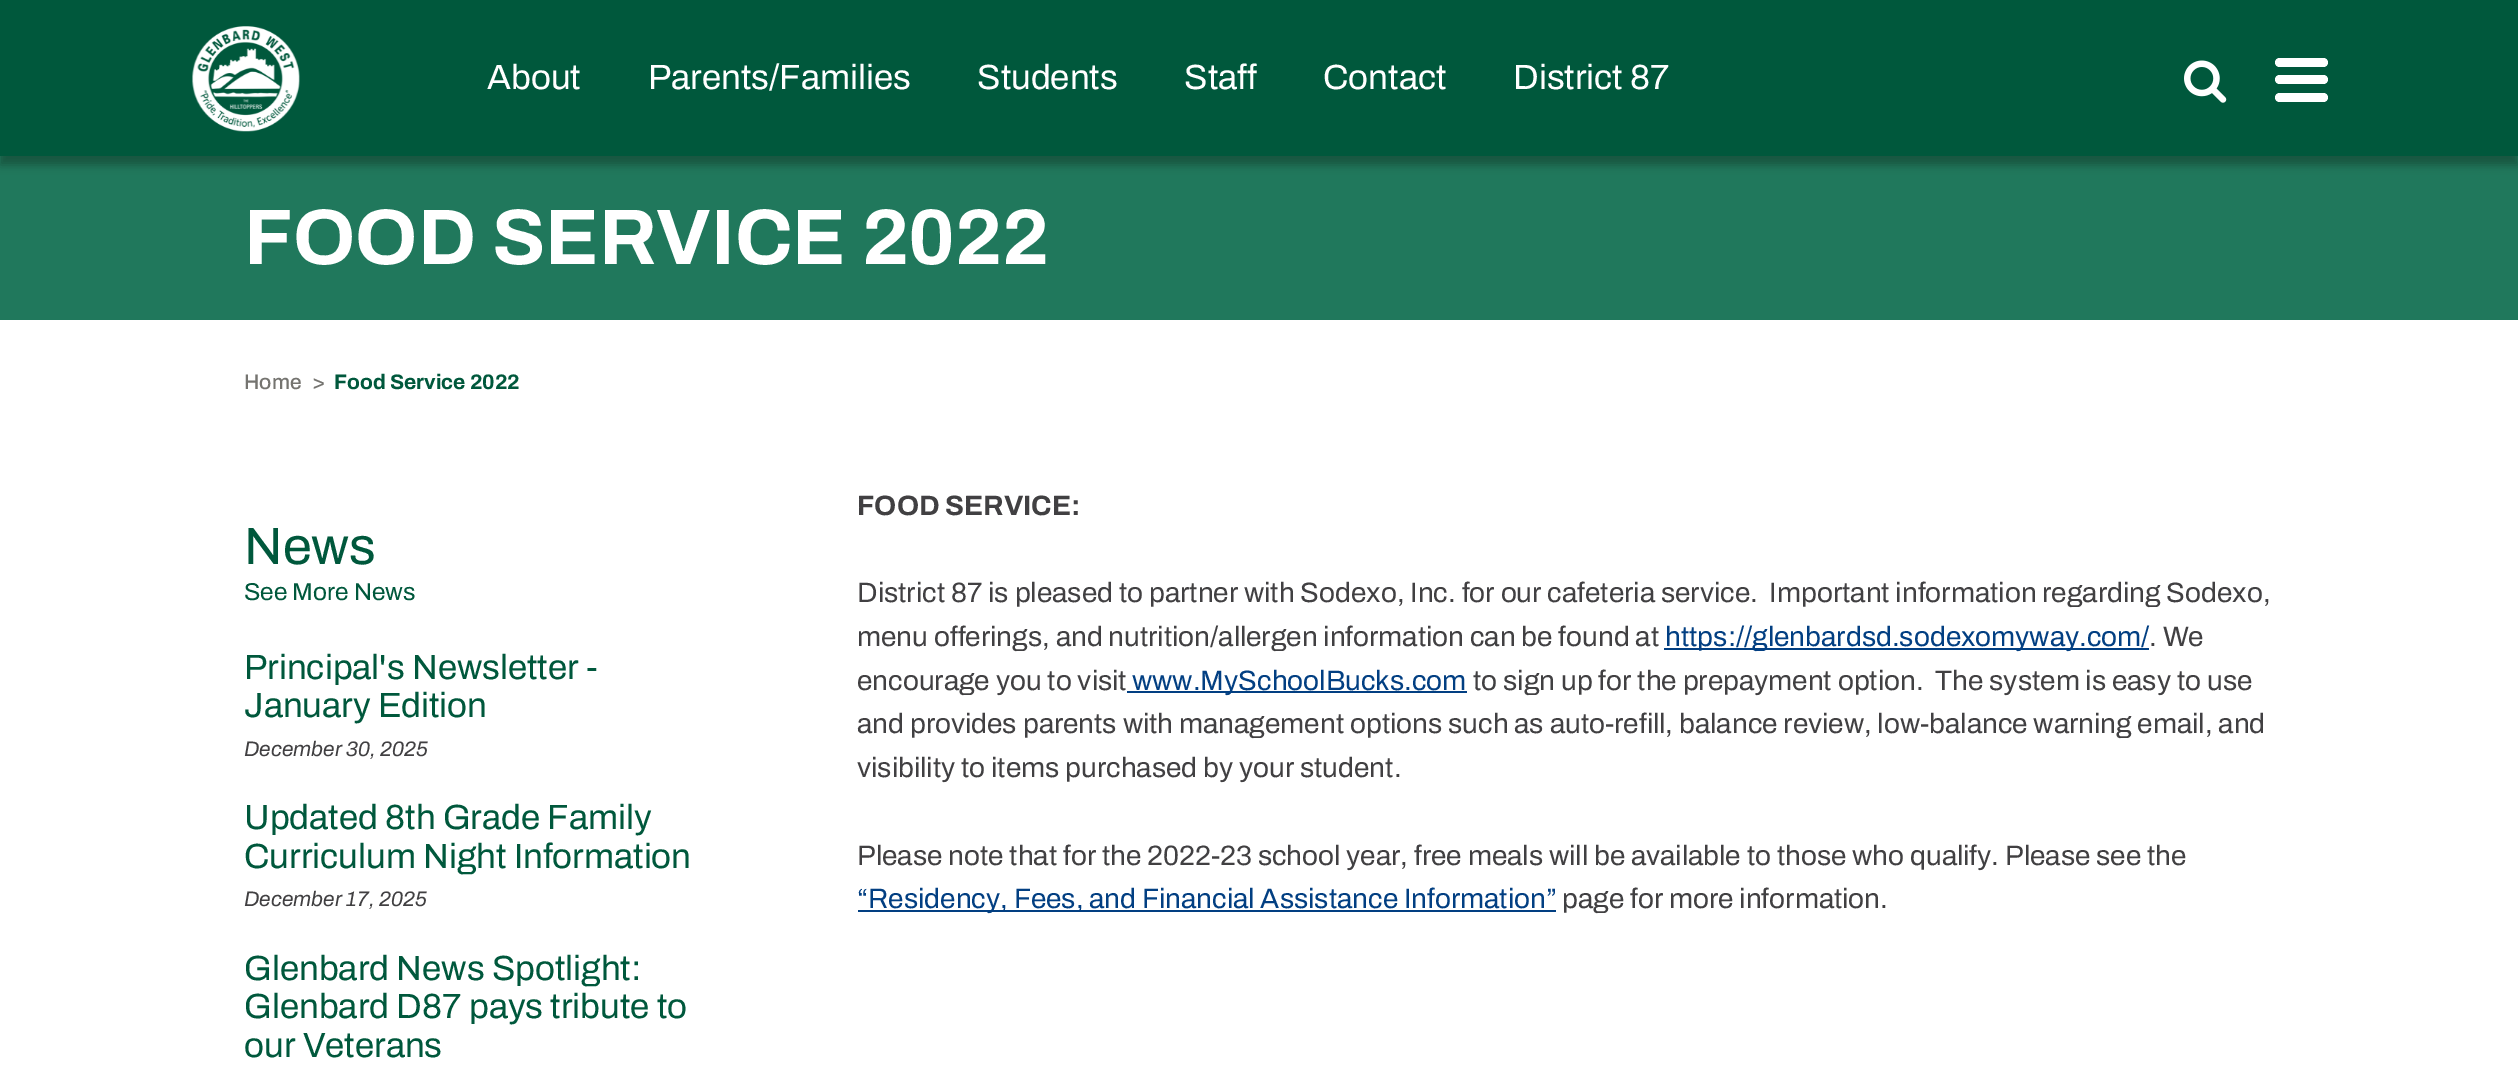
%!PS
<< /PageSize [2518 1077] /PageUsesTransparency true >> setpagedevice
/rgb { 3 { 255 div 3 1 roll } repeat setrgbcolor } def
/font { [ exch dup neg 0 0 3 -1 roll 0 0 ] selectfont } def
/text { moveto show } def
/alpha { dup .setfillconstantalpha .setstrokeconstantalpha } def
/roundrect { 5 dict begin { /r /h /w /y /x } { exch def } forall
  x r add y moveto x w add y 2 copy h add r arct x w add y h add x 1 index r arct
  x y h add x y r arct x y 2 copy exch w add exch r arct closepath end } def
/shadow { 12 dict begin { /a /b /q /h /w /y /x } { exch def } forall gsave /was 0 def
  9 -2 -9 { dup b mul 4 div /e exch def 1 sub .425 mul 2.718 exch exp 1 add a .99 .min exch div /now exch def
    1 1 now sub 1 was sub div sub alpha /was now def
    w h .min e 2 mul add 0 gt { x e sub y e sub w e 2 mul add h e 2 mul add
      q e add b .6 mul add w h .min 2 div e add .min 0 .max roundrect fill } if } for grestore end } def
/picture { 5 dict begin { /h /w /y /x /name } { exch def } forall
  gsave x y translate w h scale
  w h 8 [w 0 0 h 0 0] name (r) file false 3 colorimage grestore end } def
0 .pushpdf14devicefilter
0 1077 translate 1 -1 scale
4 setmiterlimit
255 255 255 rgb
0 0 2518 1077 rectfill
32 120 92 rgb
0 156 2518 164 rectfill
0 0 0 rgb
0 9 2518 156 0 4.5 0.3 shadow
0 88 60 rgb
0 0 2518 156 rectfill
(img_01.rgb) 192 26 108 106 picture
(img_02.rgb) 2184 60 43 43 picture
255 255 255 rgb
2275 58 53 9 4.5 roundrect fill
2275 75 53 9 4.5 roundrect fill
2275 93 53 9 4.5 roundrect fill
2 63 130 rgb
1664 648 485 2 rectfill
1127 691 340 2 rectfill
858 910 698 2 rectfill
/Archivo-Regular 35 font
255 255 255 rgb
(About) 487 89 text
(Parents/Families) 648 89 text
(Students) 977 89 text
(Staff) 1184 89 text
(Contact) 1323 89 text
(District 87) 1513 89 text
/Archivo-Bold 78.75 font
(FOOD SERVICE 2022) 244 264 text
/Archivo-Medium 21 font
117 116 112 rgb
(Home) 244 389 text
(>) 312 389 text
/Archivo-Bold 21 font
0 88 60 rgb
(Food Service 2022) 334 389 text
/Archivo-Regular 52.5 font
(News) 244 564 text
/Archivo-Regular 24.5 font
(See More News) 244 600 text
/Archivo-Regular 35 font
(Principal's Newsletter -) 244 679 text
(January Edition) 244 717 text
/Archivo-SemiBoldItalic 21 font
65 64 66 rgb
(December 30, 2025) 244 756 text
/Archivo-Regular 35 font
0 88 60 rgb
(Updated 8th Grade Family) 244 829 text
(Curriculum Night Information) 244 868 text
/Archivo-SemiBoldItalic 21 font
65 64 66 rgb
(December 17, 2025) 244 906 text
/Archivo-Regular 35 font
0 88 60 rgb
(Glenbard News Spotlight:) 244 980 text
(Glenbard D87 pays tribute to) 244 1018 text
(our Veterans) 244 1057 text
/Archivo-Bold 28 font
65 64 66 rgb
(FOOD SERVICE:) 857 515 text
/Archivo-Regular 28 font
(District 87 is pleased to partner with Sodexo, Inc. for our cafeteria service.  Important information regarding Sodexo,) 857 602 text
(menu offerings, and nutrition/allergen information can be found at) 857 646 text
2 63 130 rgb
(https://glenbardsd.sodexomyway.com/) 1665 646 text
65 64 66 rgb
(. We) 2149 646 text
(encourage you to visit) 857 690 text
2 63 130 rgb
(www.MySchoolBucks.com) 1132 690 text
65 64 66 rgb
(to sign up for the prepayment option.  The system is easy to use) 1473 690 text
(and provides parents with management options such as auto-refill, balance review, low-balance warning email, and) 857 733 text
(visibility to items purchased by your student.) 857 777 text
(Please note that for the 2022-23 school year, free meals will be available to those who qualify. Please see the) 857 865 text
2 63 130 rgb
(“Residency, Fees, and Financial Assistance Information”) 857 908 text
65 64 66 rgb
(page for more information.) 1562 908 text
.poppdf14devicefilter showpage
